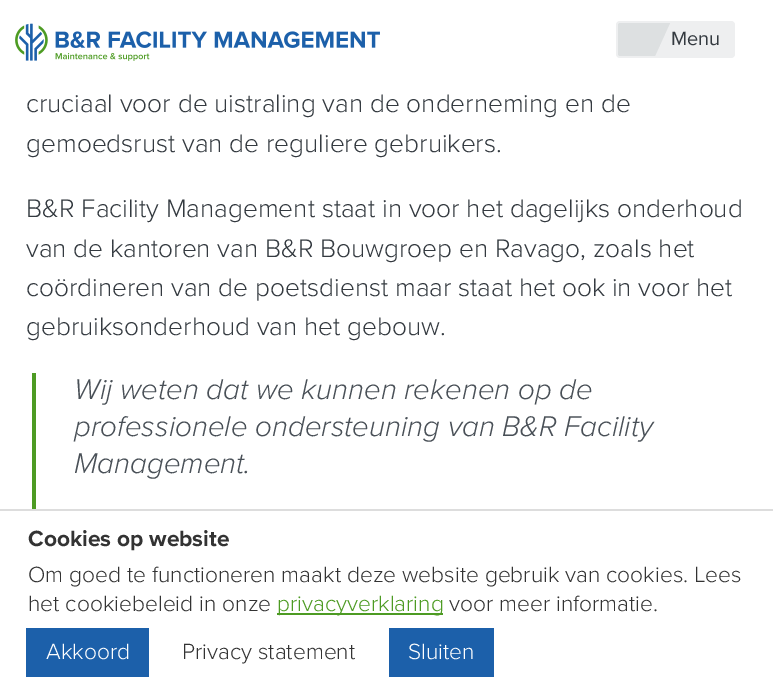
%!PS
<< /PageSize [773 692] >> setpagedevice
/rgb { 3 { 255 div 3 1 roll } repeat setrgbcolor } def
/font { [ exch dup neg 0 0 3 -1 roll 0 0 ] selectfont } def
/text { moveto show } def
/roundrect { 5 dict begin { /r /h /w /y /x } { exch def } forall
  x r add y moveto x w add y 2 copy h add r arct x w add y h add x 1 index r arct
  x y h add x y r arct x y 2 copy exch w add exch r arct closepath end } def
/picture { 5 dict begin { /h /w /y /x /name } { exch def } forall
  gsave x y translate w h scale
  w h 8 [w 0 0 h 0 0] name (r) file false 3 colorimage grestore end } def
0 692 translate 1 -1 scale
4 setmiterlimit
255 255 255 rgb
0 0 773 692 rectfill
(img_01.rgb) 15 23 365 38 picture
238 239 240 rgb
616 21 119 37 4 roundrect fill
221 224 225 rgb
620 23 moveto 50 0 rlineto -15 33 rlineto -35 0 rlineto -1 0 -2 -1 -2 -2 rcurveto 0 -29 rlineto 0 -1 1 -2 2 -2 rcurveto closepath fill
77 155 35 rgb
32 373 4 136 rectfill
221 221 221 rgb
0 509 773 2 rectfill
77 155 35 rgb
277 613 166 2 rectfill
28 96 170 rgb
26 628 123 49 rectfill
389 628 105 49 rectfill
/ProximaNova-Regular 20 font
52 58 64 rgb
(Menu) 671 45 text
/ProximaNova-Light 26.25 font
(cruciaal voor de uistraling van de onderneming en de) 26 112 text
(gemoedsrust van de reguliere gebruikers.) 26 152 text
(B&R Facility Management staat in voor het dagelijks onderhoud) 26 217 text
(van de kantoren van B&R Bouwgroep en Ravago, zoals het) 26 257 text
(coördineren van de poetsdienst maar staat het ook in voor het) 26 296 text
(gebruiksonderhoud van het gebouw.) 26 335 text
/ProximaNova-LightItalic 29.5 font
73 80 87 rgb
(Wij weten dat we kunnen rekenen op de) 74 399 text
(professionele ondersteuning van B&R Facility) 74 436 text
(Management.) 74 473 text
/ProximaNova-Bold 22.75 font
51 51 51 rgb
(Cookies op website) 28 546 text
/ProximaNova-Light 22.75 font
(Om goed te functioneren maakt deze website gebruik van cookies. Lees) 28 582 text
(het cookiebeleid in onze) 28 611 text
77 155 35 rgb
(privacyverklaring) 277 611 text
51 51 51 rgb
(voor meer informatie.) 449 611 text
255 255 255 rgb
(Akkoord) 46 659 text
51 51 51 rgb
(Privacy statement) 182 659 text
255 255 255 rgb
(Sluiten) 408 659 text
showpage
